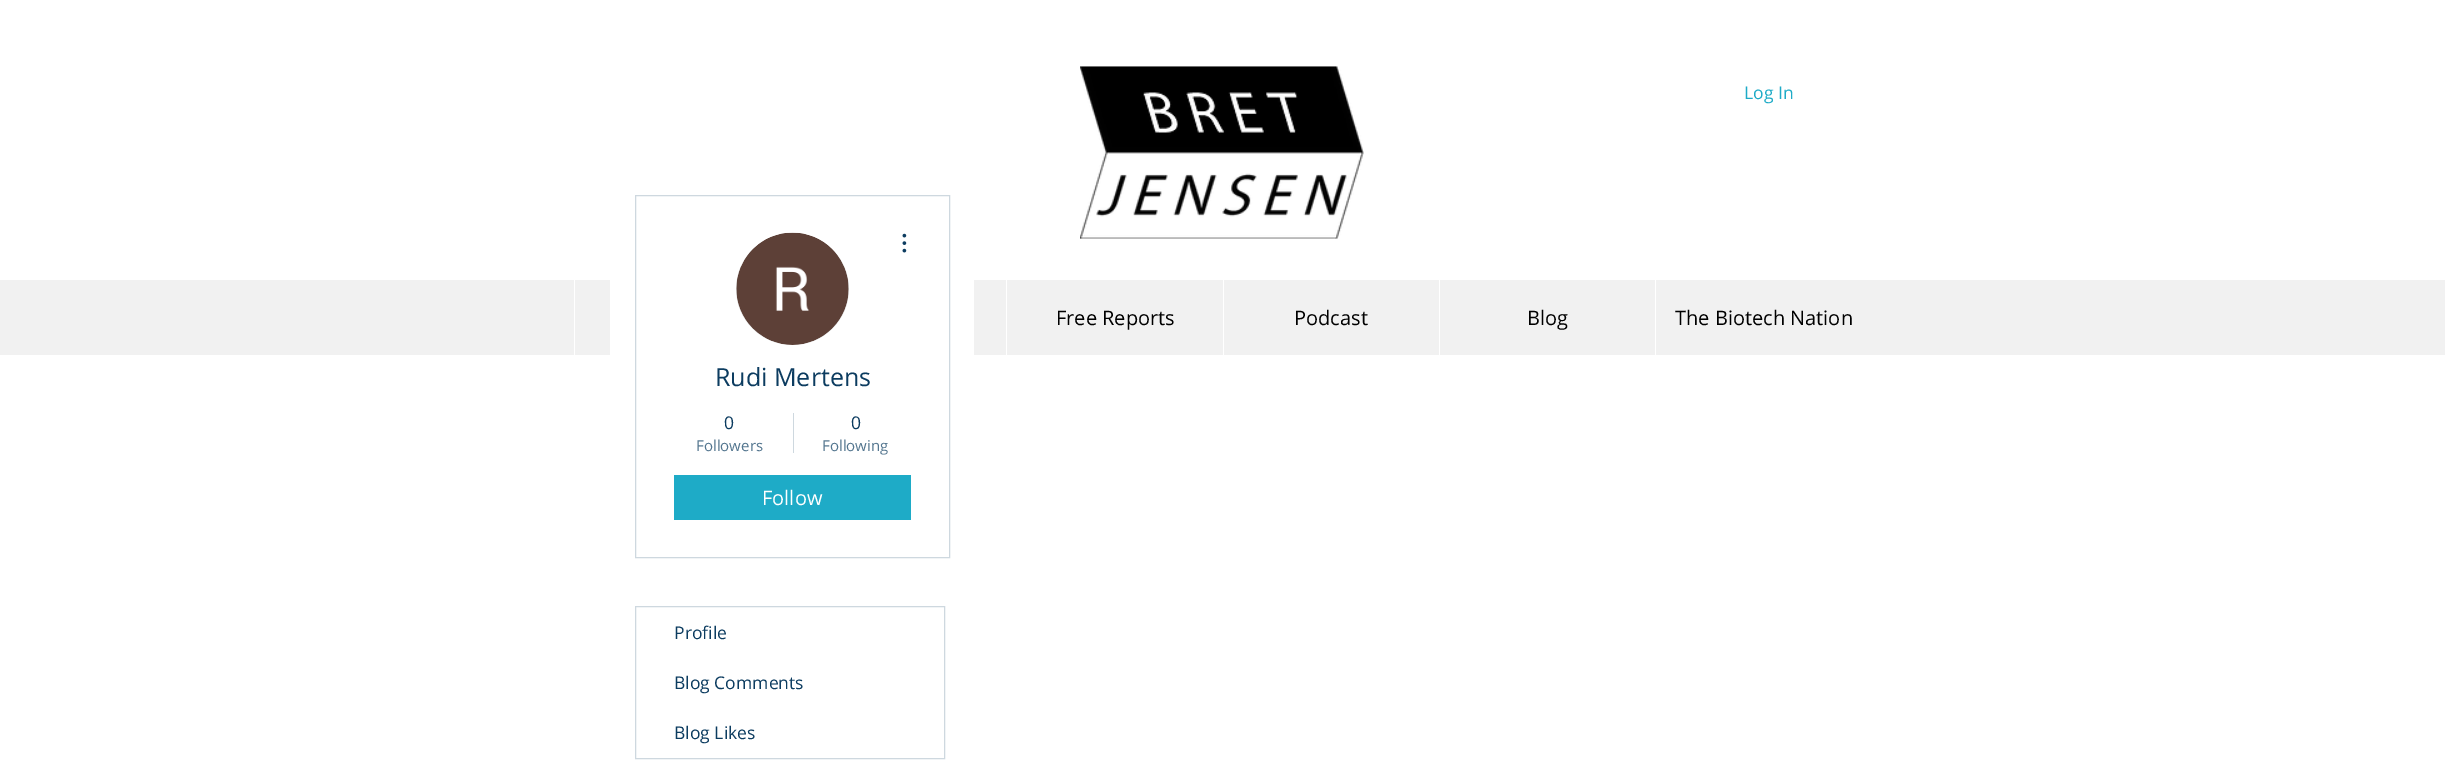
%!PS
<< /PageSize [2445 782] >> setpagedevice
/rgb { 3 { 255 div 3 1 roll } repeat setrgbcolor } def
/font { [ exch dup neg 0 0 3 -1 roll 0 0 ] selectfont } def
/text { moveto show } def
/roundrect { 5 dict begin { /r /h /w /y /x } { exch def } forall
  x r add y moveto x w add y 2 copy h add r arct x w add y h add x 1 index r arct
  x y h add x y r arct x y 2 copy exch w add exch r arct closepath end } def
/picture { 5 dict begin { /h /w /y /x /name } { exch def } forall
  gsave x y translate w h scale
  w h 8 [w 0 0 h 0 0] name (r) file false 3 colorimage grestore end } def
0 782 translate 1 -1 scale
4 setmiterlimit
255 255 255 rgb
0 0 2445 782 rectfill
(img_01.rgb) 1080 66 284 173 picture
241 241 241 rgb
0 280 2445 75 rectfill
255 255 255 rgb
574 280 1 75 rectfill
1006 280 1 75 rectfill
1223 280 1 75 rectfill
1439 280 1 75 rectfill
1655 280 1 75 rectfill
610 280 364 75 rectfill
206 216 223 rgb
635.5 195.5 314 362 rectstroke
216 216 216 rgb
736 233 113 112 56 roundrect fill
(img_02.rgb) 736 232 113 113 picture
(img_03.rgb) 902 233 5 20 picture
206 216 223 rgb
793 413 1 40 rectfill
30 171 199 rgb
674 475 237 45 rectfill
206 216 223 rgb
635.5 606.5 309 152 rectstroke
/OpenSans-Regular 17.5 font
30 171 199 rgb
(Log In) 1744 99 text
/OpenSans-Regular 20 font
0 0 0 rgb
(Free Reports) 1056 325 text
(Podcast) 1294 325 text
(Blog) 1527 325 text
(The Biotech Nation) 1675 325 text
/OpenSans-Regular 25 font
12 60 96 rgb
(Rudi Mertens) 715 386 text
/OpenSans-Regular 17.5 font
(0) 724 429 text
/OpenSans-Regular 15 font
85 119 144 rgb
(Followers) 696 451 text
/OpenSans-Regular 17.5 font
12 60 96 rgb
(0) 851 429 text
/OpenSans-Regular 15 font
85 119 144 rgb
(Following) 822 451 text
/OpenSans-Regular 20 font
255 255 255 rgb
(Follow) 762 505 text
/OpenSans-Regular 17.5 font
12 60 96 rgb
(Profile) 674 639 text
(Blog Comments) 674 689 text
(Blog Likes) 674 739 text
showpage
